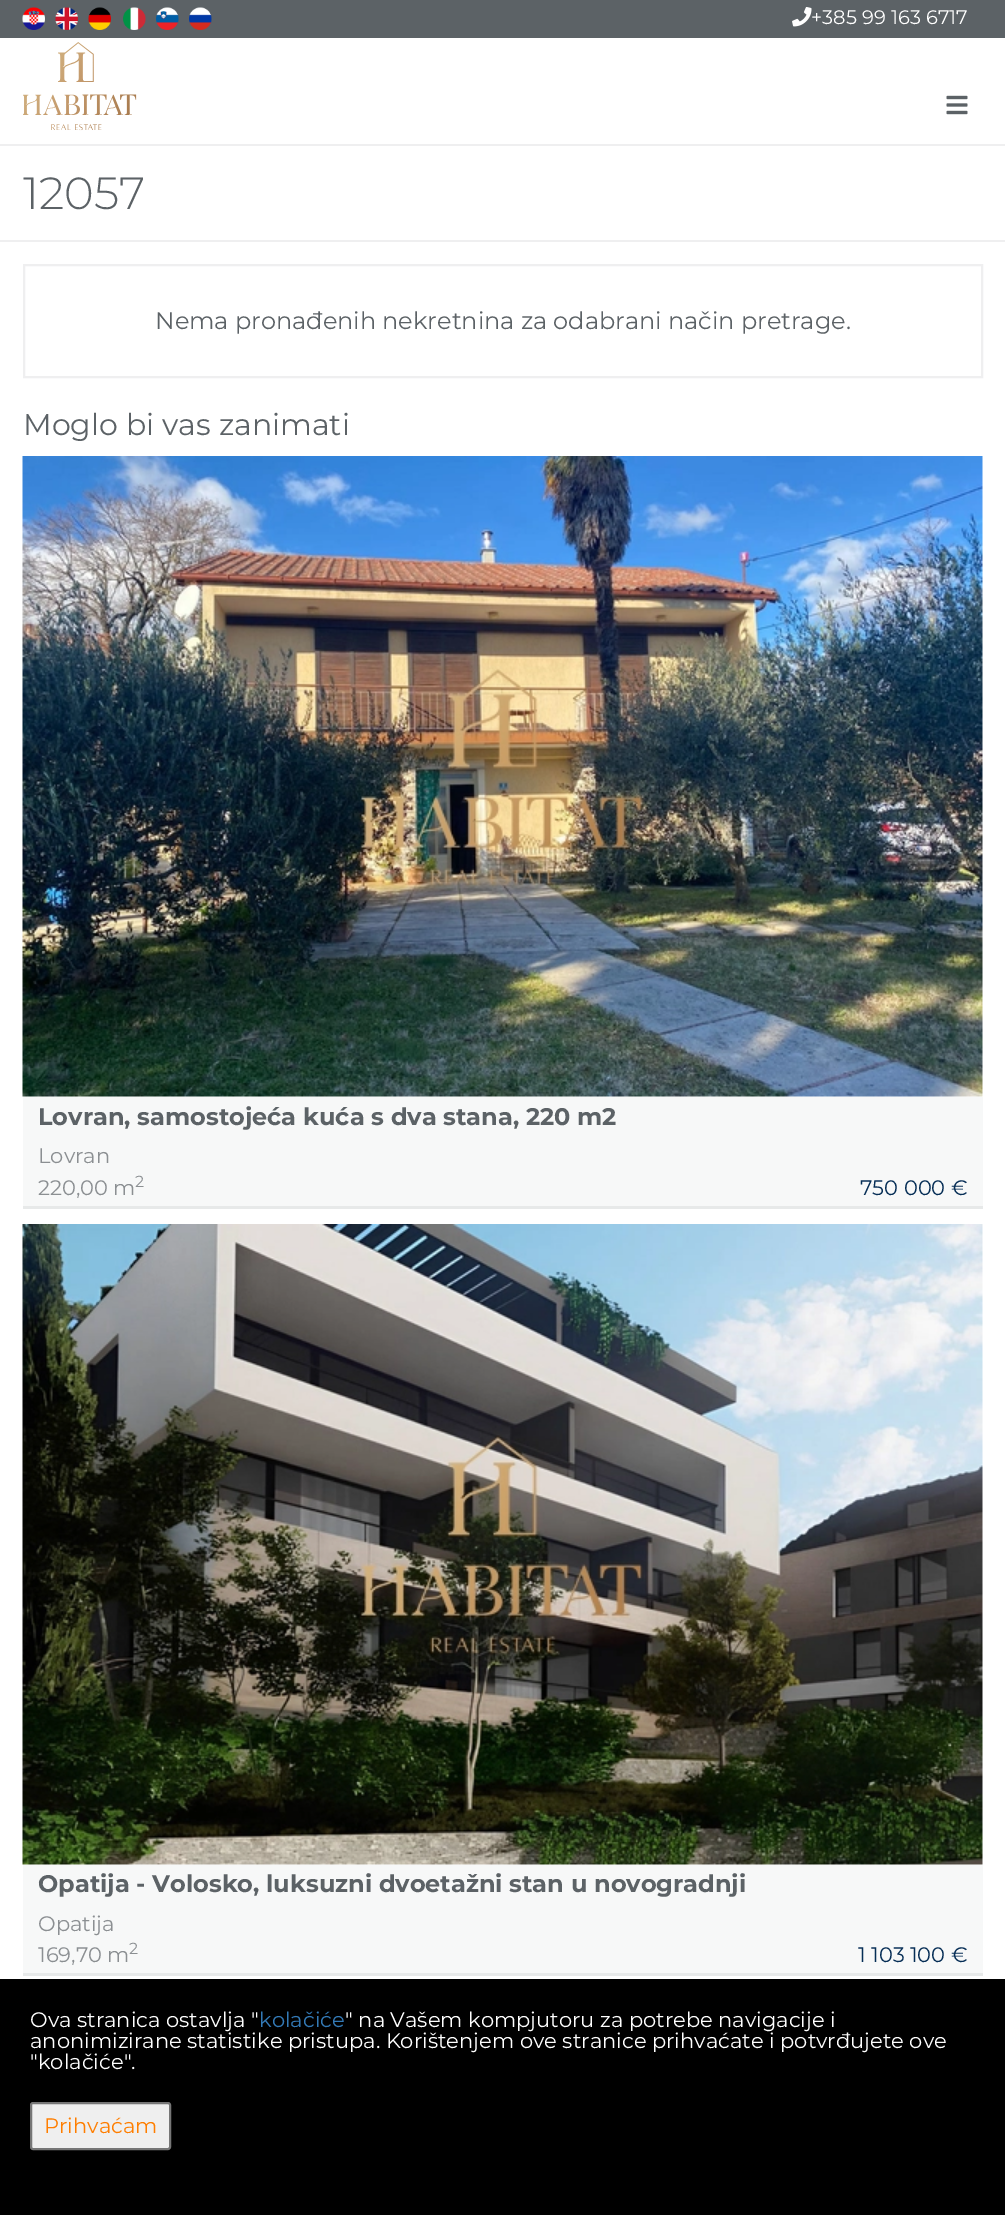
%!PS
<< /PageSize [1005 2215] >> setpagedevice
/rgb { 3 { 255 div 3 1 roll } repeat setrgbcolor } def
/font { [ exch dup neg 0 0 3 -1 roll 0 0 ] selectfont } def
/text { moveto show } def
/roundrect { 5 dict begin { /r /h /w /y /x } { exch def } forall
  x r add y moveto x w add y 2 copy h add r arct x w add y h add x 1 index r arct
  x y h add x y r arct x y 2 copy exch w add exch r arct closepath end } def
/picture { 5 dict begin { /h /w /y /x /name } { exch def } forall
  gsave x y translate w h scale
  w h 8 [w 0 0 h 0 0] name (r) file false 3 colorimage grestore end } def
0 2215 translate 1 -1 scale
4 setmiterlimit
255 255 255 rgb
0 0 1005 2215 rectfill
92 98 102 rgb
0 0 1005 38 rectfill
(img_01.rgb) 22 7 23 23 picture
(img_02.rgb) 55 7 23 23 picture
(img_03.rgb) 88 7 23 23 picture
(img_04.rgb) 123 7 23 23 picture
(img_05.rgb) 156 7 23 23 picture
(img_06.rgb) 189 7 23 23 picture
(img_07.rgb) 792 7 20 20 picture
(img_08.rgb) 23 42 114 89 picture
(img_09.rgb) 946 95 22 20 picture
239 239 240 rgb
0 144 1005 2 rectfill
0 240 1005 2 rectfill
2 setlinewidth
24 265 958 112 rectstroke
(img_10.rgb) 22 456 961 641 picture
247 248 248 rgb
23 1097 960 109 rectfill
231 233 233 rgb
23 1206 960 3 rectfill
(img_11.rgb) 22 1224 961 641 picture
247 248 248 rgb
23 1865 960 108 rectfill
231 233 233 rgb
23 1973 960 3 rectfill
0 0 0 rgb
0 1979 1005 236 rectfill
239 239 239 rgb
31 2103 139 46 2 roundrect gsave fill grestore
118 118 118 rgb
stroke
/Montserrat-Regular 19.5 font
255 255 255 rgb
(+385 99 163 6717) 811 24 text
/Montserrat-Light 45 font
92 98 102 rgb
(12057) 23 209 text
/Montserrat-Regular 24 font
(Nema pronađenih nekretnina za odabrani način pretrage.) 155 329 text
/Montserrat-Regular 30 font
(Moglo bi vas zanimati) 23 435 text
/Montserrat-Bold 24 font
(Lovran, samostojeća kuća s dva stana, 220 m2) 38 1125 text
/Montserrat-Regular 21 font
139 143 146 rgb
(Lovran) 38 1163 text
(220,00 m) 38 1195 text
/Montserrat-Regular 16 font
(2) 135 1187 text
/Montserrat-Regular 21 font
6 46 86 rgb
(750 000 €) 860 1195 text
/Montserrat-Bold 24 font
92 98 102 rgb
(Opatija - Volosko, luksuzni dvoetažni stan u novogradnji) 38 1892 text
/Montserrat-Regular 21 font
139 143 146 rgb
(Opatija) 38 1931 text
(169,70 m) 38 1962 text
/Montserrat-Regular 16 font
(2) 129 1954 text
/Montserrat-Regular 21 font
6 46 86 rgb
(1 103 100 €) 858 1962 text
255 255 255 rgb
(Ova stranica ostavlja ") 30 2027 text
51 122 183 rgb
(kolačiće) 259 2027 text
255 255 255 rgb
(" na Vašem kompjutoru za potrebe navigacije i) 345 2027 text
(anonimizirane statistike pristupa. Korištenjem ove stranice prihvaćate i potvrđujete ove) 30 2048 text
("kolačiće".) 30 2069 text
255 126 0 rgb
(Prihvaćam) 44 2133 text
showpage
